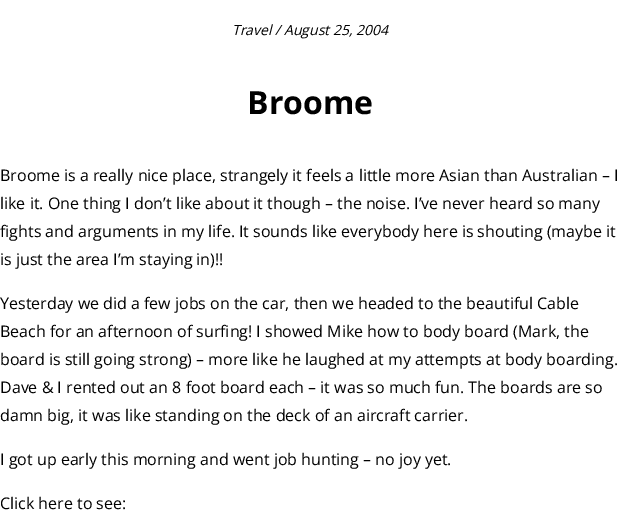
%!PS
<< /PageSize [620 525] >> setpagedevice
/rgb { 3 { 255 div 3 1 roll } repeat setrgbcolor } def
/font { [ exch dup neg 0 0 3 -1 roll 0 0 ] selectfont } def
/text { moveto show } def
0 525 translate 1 -1 scale
4 setmiterlimit
255 255 255 rgb
0 0 620 525 rectfill
/OpenSans-Italic 14 font
0 0 0 rgb
(Travel / August 25, 2004) 232 35 text
/OpenSans-Bold 32 font
(Broome) 247 114 text
/OpenSans-Regular 16 font
(Broome is a really nice place, strangely it feels a little more Asian than Australian – I) 0 181 text
(like it. One thing I don’t like about it though – the noise. I’ve never heard so many) 0 209 text
(fights and arguments in my life. It sounds like everybody here is shouting \(maybe it) 0 237 text
(is just the area I’m staying in\)!!) 0 265 text
(Yesterday we did a few jobs on the car, then we headed to the beautiful Cable) 0 309 text
(Beach for an afternoon of surfing! I showed Mike how to body board \(Mark, the) 0 337 text
(board is still going strong\) – more like he laughed at my attempts at body boarding.) 0 365 text
(Dave & I rented out an 8 foot board each – it was so much fun. The boards are so) 0 393 text
(damn big, it was like standing on the deck of an aircraft carrier.) 0 421 text
(I got up early this morning and went job hunting – no joy yet.) 0 465 text
(Click here to see:) 0 509 text
showpage
